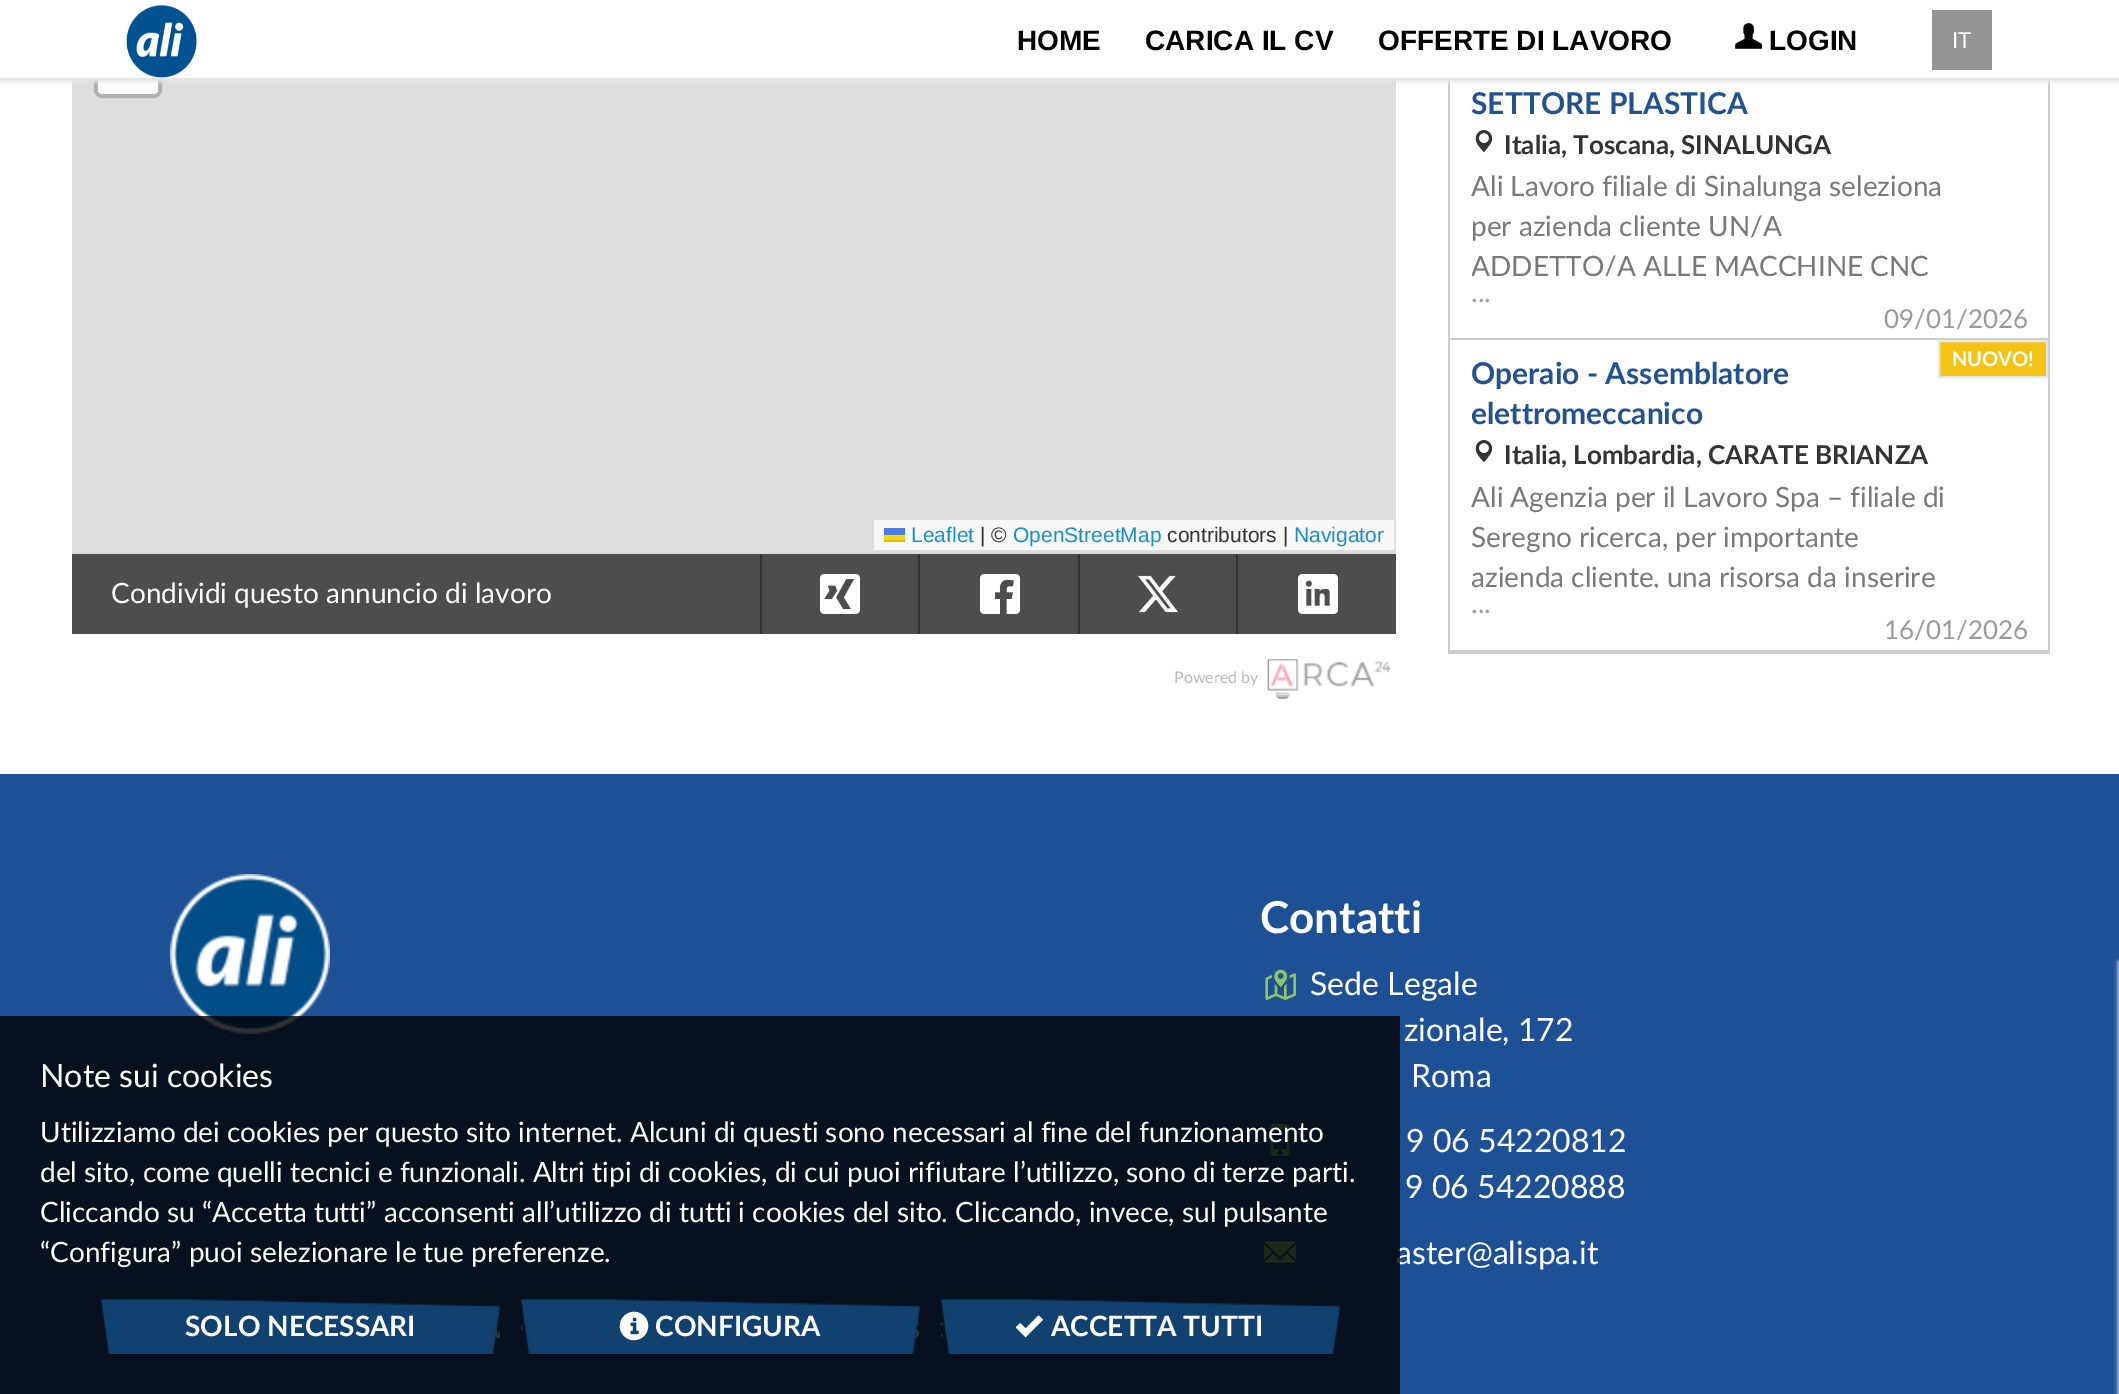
%!PS
<< /PageSize [2119 1394] /PageUsesTransparency true >> setpagedevice
/rgb { 3 { 255 div 3 1 roll } repeat setrgbcolor } def
/font { [ exch dup neg 0 0 3 -1 roll 0 0 ] selectfont } def
/text { moveto show } def
/alpha { dup .setfillconstantalpha .setstrokeconstantalpha } def
/roundrect { 5 dict begin { /r /h /w /y /x } { exch def } forall
  x r add y moveto x w add y 2 copy h add r arct x w add y h add x 1 index r arct
  x y h add x y r arct x y 2 copy exch w add exch r arct closepath end } def
/shadow { 12 dict begin { /a /b /q /h /w /y /x } { exch def } forall gsave /was 0 def
  9 -2 -9 { dup b mul 4 div /e exch def 1 sub .425 mul 2.718 exch exp 1 add a .99 .min exch div /now exch def
    1 1 now sub 1 was sub div sub alpha /was now def
    w h .min e 2 mul add 0 gt { x e sub y e sub w e 2 mul add h e 2 mul add
      q e add b .6 mul add w h .min 2 div e add .min 0 .max roundrect fill } if } for grestore end } def
/picture { 5 dict begin { /h /w /y /x /name } { exch def } forall
  gsave x y translate w h scale
  w h 8 [w 0 0 h 0 0] name (r) file false 3 colorimage grestore end } def
0 .pushpdf14devicefilter
0 1394 translate 1 -1 scale
4 setmiterlimit
255 255 255 rgb
0 0 2119 1394 rectfill
221 221 221 rgb
1394 80 2 474 rectfill
72 550 1324 4 rectfill
72 80 2 474 rectfill
74 80 1320 470 rectfill
177 177 177 rgb
4 setlinewidth
96 -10 64 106 6 roundrect stroke
255 255 255 rgb
98 34 moveto 60 0 rlineto 0 56 rlineto 0 2 -2 4 -4 4 rcurveto -52 0 rlineto -2 0 -4 -2 -4 -4 rcurveto closepath fill
205 205 205 rgb
2048 80 2 574 rectfill
1448 338 602 2 rectfill
1448 80 2 260 rectfill
229 229 229 rgb
-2 -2 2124 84 0 2 1 shadow
255 255 255 rgb
0 0 2119 78 rectfill
229 229 229 rgb
0 78 2119 2 rectfill
(img_01.rgb) 126 5 71 73 picture
(img_02.rgb) 1735 23 27 26 picture
148 148 148 rgb
1932 10 60 60 rectfill
248 248 248 rgb
874 520 520 30 rectfill
76 123 225 rgb
884 528 21 7 rectfill
255 213 0 rgb
884 535 21 5 rectfill
224 188 0 rgb
884 540 21 2 rectfill
77 77 77 rgb
72 554 1324 80 rectfill
51 51 51 rgb
760 554 2 80 rectfill
(img_03.rgb) 820 574 40 40 picture
918 554 2 80 rectfill
(img_04.rgb) 980 574 40 40 picture
1078 554 2 80 rectfill
(img_05.rgb) 1138 575 40 38 picture
1236 554 2 80 rectfill
(img_06.rgb) 1298 574 40 40 picture
(img_07.rgb) 1267 659 124 40 picture
(img_08.rgb) 1475 130 18 23 picture
205 205 205 rgb
1448 650 602 4 rectfill
1448 340 2 314 rectfill
245 195 22 rgb
1939 341 moveto 108 0 rlineto 0 36 rlineto -108 0 rlineto closepath gsave fill grestore
230 230 230 rgb
2 setlinewidth
stroke
(img_08.rgb) 1475 440 18 23 picture
29 80 148 rgb
0 774 2119 620 rectfill
(img_14.rgb) 170 874 160 160 picture
(img_15.rgb) 1265 969 31 31 picture
(img_16.rgb) 1270 1124 20 32 picture
(img_17.rgb) 1264 1241 32 22 picture
229 229 229 rgb
2118 962 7 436 0 2 1 shadow
/LiberationSans-Bold 28 font
0 0 0 rgb
(HOME) 1017 50 text
(CARICA IL CV) 1145 50 text
(OFFERTE DI LAVORO) 1378 50 text
(LOGIN) 1769 50 text
/Lato-Regular 22 font
255 255 255 rgb
(IT) 1952 48 text
/LiberationSans-Regular 21 font
25 143 202 rgb
(Leaflet) 911 542 text
51 51 51 rgb
(| ©) 980 542 text
25 143 202 rgb
(OpenStreetMap) 1013 542 text
51 51 51 rgb
(contributors |) 1167 542 text
25 143 202 rgb
(Navigator) 1294 542 text
/Lato-Regular 28 font
255 255 255 rgb
(Condividi questo annuncio di lavoro) 111 603 text
/Lato-Regular 16 font
185 185 185 rgb
(Powered by) 1174 683 text
/Lato-Bold 30 font
36 82 140 rgb
(SETTORE PLASTICA) 1471 114 text
/Lato-Bold 26 font
51 51 51 rgb
(Italia, Toscana, SINALUNGA) 1504 154 text
/Lato-Regular 28 font
121 121 121 rgb
(Ali Lavoro filiale di Sinalunga seleziona) 1471 196 text
(per azienda cliente UN/A) 1471 236 text
gsave
1472 166 480 110 rectclip
(ADDETTO/A ALLE MACCHINE CNC) 1471 276 text
grestore
159 159 159 rgb
(...) 1471 302 text
/Lato-Regular 26 font
153 153 153 rgb
(09/01/2026) 1884 328 text
/Lato-Bold 20 font
255 255 255 rgb
(NUOVO!) 1952 366 text
/Lato-Bold 30 font
36 82 140 rgb
(Operaio - Assemblatore) 1471 384 text
(elettromeccanico) 1471 424 text
/Lato-Bold 26 font
51 51 51 rgb
(Italia, Lombardia, CARATE BRIANZA) 1504 464 text
/Lato-Regular 28 font
121 121 121 rgb
(Ali Agenzia per il Lavoro Spa – filiale di) 1471 507 text
(Seregno ricerca, per importante) 1471 547 text
gsave
1472 478 480 110 rectclip
(azienda cliente, una risorsa da inserire) 1471 587 text
grestore
159 159 159 rgb
(...) 1471 613 text
/Lato-Regular 26 font
153 153 153 rgb
(16/01/2026) 1884 639 text
/Lato-Bold 44 font
255 255 255 rgb
(Contatti) 1260 933 text
/Lato-Regular 32 font
(Sede Legale) 1310 995 text
(zionale, 172) 1404 1041 text
(Roma) 1411 1087 text
(9 06 54220812) 1406 1152 text
(9 06 54220888) 1405 1198 text
(aster@alispa.it) 1396 1264 text
0.8 alpha
0 0 0 rgb
0 1016 1400 378 rectfill
1 alpha
(img_09.rgb) 101 1299 399 55 picture
/Lato-Bold 28 font
255 255 255 rgb
(SOLO NECESSARI) 185 1336 text
(img_10.rgb) 521 1299 399 55 picture
(CONFIGURA) 655 1336 text
(img_11.rgb) 619 1311 30 30 picture
(img_12.rgb) 941 1299 399 55 picture
(ACCETTA TUTTI) 1051 1336 text
(img_13.rgb) 1015 1315 28 23 picture
/Lato-Regular 28 font
(“Configura” puoi selezionare le tue preferenze.) 40 1262 text
(Cliccando su “Accetta tutti” acconsenti all’utilizzo di tutti i cookies del sito. Cliccando, invece, sul pulsante) 40 1222 text
(del sito, come quelli tecnici e funzionali. Altri tipi di cookies, di cui puoi rifiutare l’utilizzo, sono di terze parti.) 40 1182 text
(Utilizziamo dei cookies per questo sito internet. Alcuni di questi sono necessari al fine del funzionamento) 40 1142 text
/Lato-Regular 32 font
(Note sui cookies) 40 1087 text
.poppdf14devicefilter showpage
